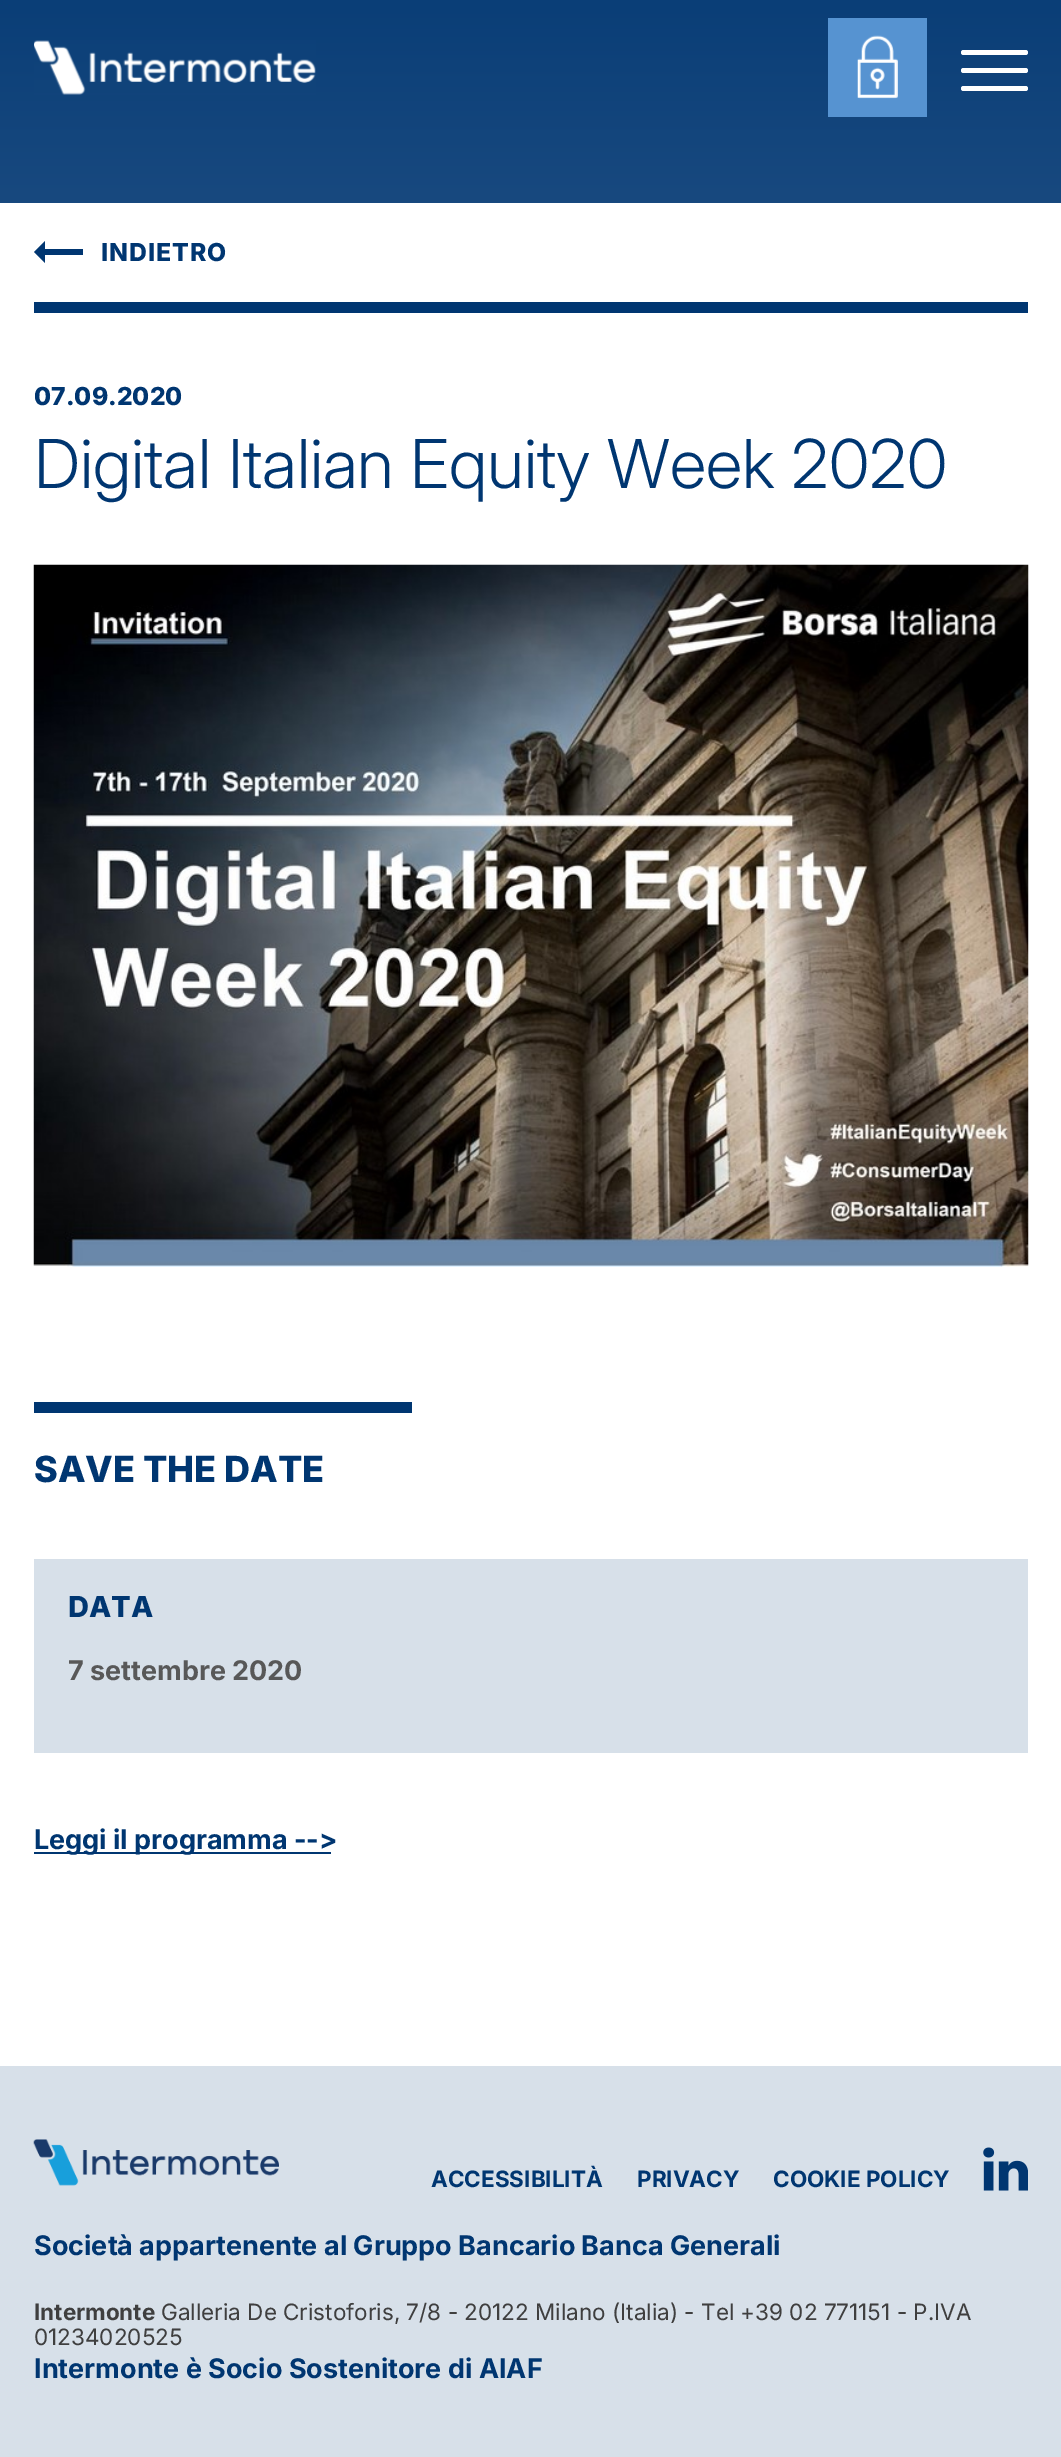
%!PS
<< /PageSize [1061 2457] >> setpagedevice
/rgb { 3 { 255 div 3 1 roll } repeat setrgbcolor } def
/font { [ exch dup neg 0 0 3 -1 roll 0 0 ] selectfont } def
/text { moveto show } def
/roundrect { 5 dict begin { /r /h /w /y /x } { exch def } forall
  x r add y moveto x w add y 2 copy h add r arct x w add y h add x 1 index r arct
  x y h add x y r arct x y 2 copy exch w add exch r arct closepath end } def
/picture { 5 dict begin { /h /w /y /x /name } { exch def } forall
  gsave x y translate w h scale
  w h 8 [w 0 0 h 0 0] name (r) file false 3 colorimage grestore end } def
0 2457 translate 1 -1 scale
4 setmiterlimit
255 255 255 rgb
0 0 1061 2457 rectfill
gsave 0 0 moveto 1061 0 rlineto 0 203 rlineto -1061 0 rlineto closepath clip newpath
<< /ShadingType 2 /ColorSpace /DeviceRGB /Coords [531 0 531 585] /Extend [true true] /Function << /FunctionType 2 /Domain [0 1] /C0 [0.039 0.243 0.467] /C1 [0.2 0.373 0.553] /N 1 >> >> shfill grestore
86 147 209 rgb
828 18 99 99 rectfill
(img_01.rgb) 857 35 41 64 picture
(img_02.rgb) 34 40 282 55 picture
255 255 255 rgb
961 68 67 5 2.5 roundrect fill
961 50 67 5 2.5 roundrect fill
961 86 67 5 2.5 roundrect fill
0 54 113 rgb
45 241 moveto 0 8 rlineto 38 0 rlineto 0 6 rlineto -38 0 rlineto 0 8 rlineto -11 -11 rlineto closepath fill
34 302 994 11 rectfill
(img_03.rgb) 33 564 996 703 picture
34 1402 378 11 rectfill
215 224 233 rgb
34 1559 994 194 rectfill
0 54 113 rgb
34 1852 297 2 rectfill
215 224 233 rgb
0 2066 1061 391 rectfill
(img_04.rgb) 33 2139 246 47 picture
(img_05.rgb) 983 2147 45 44 picture
/Inter-ExtraBold 24.75 font
0 54 113 rgb
101 261 moveto 1 0 (INDIETRO) ashow
(07.09.2020) 34 405 text
/Inter-Light 67.5 font
(Digital Italian Equity Week 2020) 34 488 text
/Inter-ExtraBold 36 font
(SAVE THE DATE) 34 1482 text
/Inter-ExtraBold 29 font
(DATA) 68 1617 text
/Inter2-Bold 27 font
88 88 88 rgb
(7 settembre 2020) 68 1680 text
/Inter-Bold 27 font
0 54 113 rgb
(Leggi il programma -->) 34 1849 text
/Inter2-Bold 22.5 font
(ACCESSIBILITÀ) 431 2187 text
(PRIVACY) 637 2187 text
(COOKIE POLICY) 773 2187 text
/Inter2-Bold 27 font
(Società appartenente al Gruppo Bancario Banca Generali) 34 2255 text
/Inter2-Bold 22.5 font
63 63 63 rgb
(Intermonte) 34 2320 text
/Inter-Regular 22.5 font
(Galleria De Cristoforis, 7/8 - 20122 Milano \(Italia\) - Tel +39 02 771151 - P.IVA) 161 2320 text
(01234020525) 34 2345 text
/Inter2-Bold 27 font
0 54 113 rgb
(Intermonte è Socio Sostenitore di AIAF) 34 2378 text
showpage
